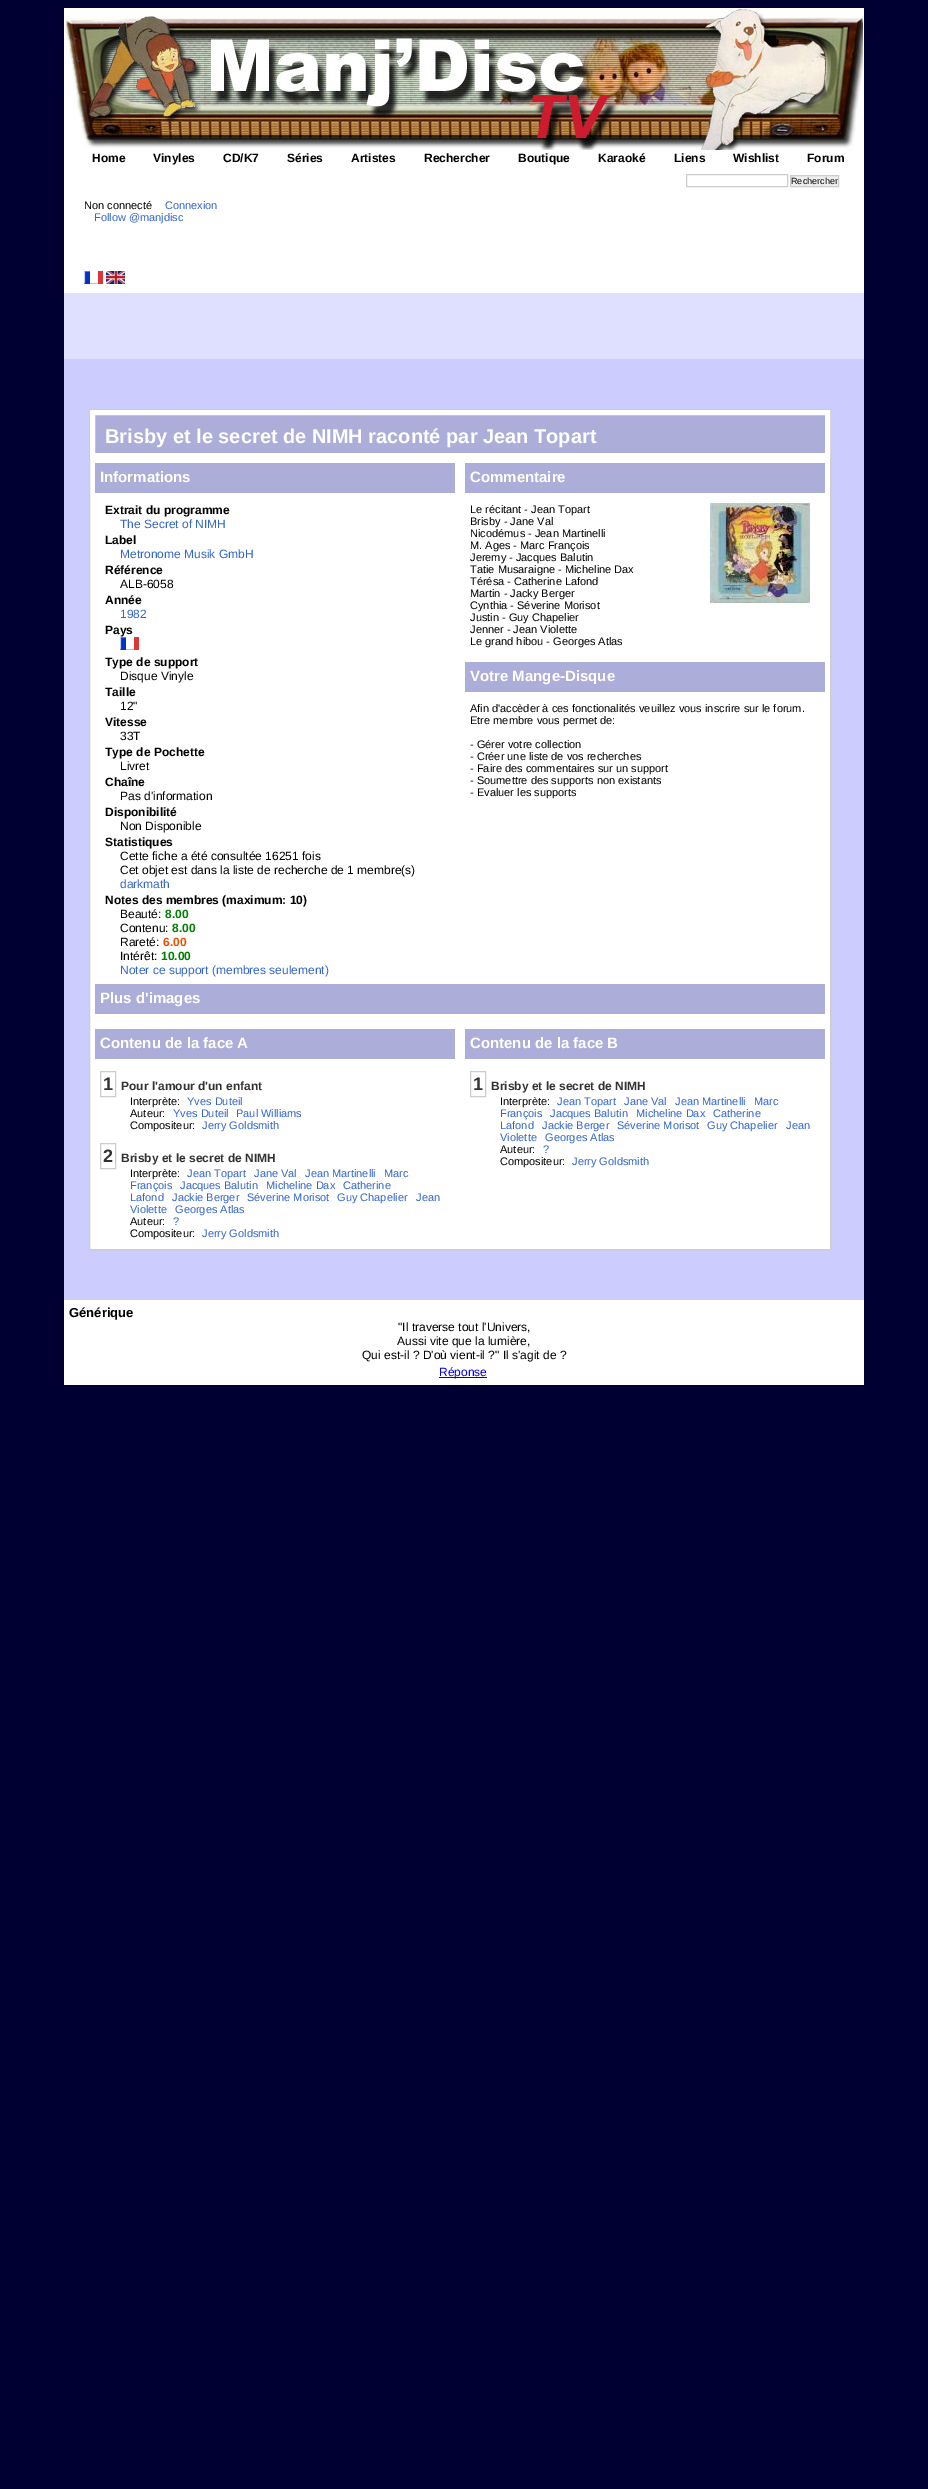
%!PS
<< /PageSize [928 2489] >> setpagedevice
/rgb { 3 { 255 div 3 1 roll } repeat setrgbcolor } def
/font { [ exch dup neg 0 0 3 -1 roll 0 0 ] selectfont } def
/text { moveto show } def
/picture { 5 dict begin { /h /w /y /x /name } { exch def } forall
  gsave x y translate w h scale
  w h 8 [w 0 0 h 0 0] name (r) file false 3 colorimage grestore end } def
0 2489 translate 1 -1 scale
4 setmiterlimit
0 0 51 rgb
0 0 928 2489 rectfill
223 223 255 rgb
64 293 800 66 rectfill
255 255 255 rgb
64 8 800 285 rectfill
(img_01.rgb) 65 9 798 141 picture
204 204 204 rgb
686.5 174.5 101 12 rectstroke
238 238 238 rgb
790.5 175.5 moveto 48 0 rlineto 0 11 rlineto -48 0 rlineto closepath gsave fill grestore
204 204 204 rgb
stroke
(img_02.rgb) 84 271 19 13 picture
(img_03.rgb) 106 271 19 13 picture
204 204 255 rgb
64 359 800 941 rectfill
255 255 255 rgb
90 458 740 791 rectfill
204 204 204 rgb
89.5 409.5 741 840 rectstroke
173 173 217 rgb
92.5 412.5 moveto 735 0 rlineto 0 43 rlineto -735 0 rlineto closepath gsave fill grestore
255 255 255 rgb
5 setlinewidth
stroke
173 173 217 rgb
95 463 360 30 rectfill
(img_02.rgb) 120 637 19 13 picture
465 463 360 30 rectfill
(img_04.rgb) 710 503 100 100 picture
465 662 360 30 rectfill
95 984 730 30 rectfill
95 1029 360 30 rectfill
204 204 204 rgb
1 setlinewidth
100.5 1071.5 15 25 rectstroke
100.5 1143.5 15 25 rectstroke
173 173 217 rgb
465 1029 360 30 rectfill
204 204 204 rgb
470.5 1071.5 15 25 rectstroke
255 255 255 rgb
64 1300 800 85 rectfill
0 0 238 rgb
439 1377 48 1 rectfill
/LiberationSans-Bold 12 font
0 0 0 rgb
(Home) 92 162 text
(Vinyles) 153 162 text
(CD/K7) 223 162 text
(Séries) 287 162 text
(Artistes) 351 162 text
(Rechercher) 424 162 text
(Boutique) 518 162 text
(Karaoké) 598 162 text
(Liens) 674 162 text
(Wishlist) 733 162 text
(Forum) 807 162 text
/LiberationSans-Regular 9 font
(Rechercher) 791 184 text
/LiberationSans-Regular 11 font
(Non connecté) 84 209 text
51 102 204 rgb
(Connexion) 165 209 text
(Follow @manjdisc) 94 221 text
/LiberationSans-Bold 20 font
255 255 255 rgb
(Brisby et le secret de NIMH raconté par Jean Topart) 105 443 text
/LiberationSans-Bold 15 font
(Informations) 100 482 text
/LiberationSans-Bold 12 font
0 0 0 rgb
(Extrait du programme) 105 514 text
/LiberationSans-Regular 12 font
51 102 204 rgb
(The Secret of NIMH) 120 528 text
/LiberationSans-Bold 12 font
0 0 0 rgb
(Label) 105 544 text
/LiberationSans-Regular 12 font
51 102 204 rgb
(Metronome Musik GmbH) 120 558 text
/LiberationSans-Bold 12 font
0 0 0 rgb
(Référence) 105 574 text
/LiberationSans-Regular 12 font
(ALB-6058) 120 588 text
/LiberationSans-Bold 12 font
(Année) 105 604 text
/LiberationSans-Regular 12 font
51 102 204 rgb
(1982) 120 618 text
/LiberationSans-Bold 12 font
0 0 0 rgb
(Pays) 105 634 text
(Type de support) 105 666 text
/LiberationSans-Regular 12 font
(Disque Vinyle) 120 680 text
/LiberationSans-Bold 12 font
(Taille) 105 696 text
/LiberationSans-Regular 12 font
(12") 120 710 text
/LiberationSans-Bold 12 font
(Vitesse) 105 726 text
/LiberationSans-Regular 12 font
(33T) 120 740 text
/LiberationSans-Bold 12 font
(Type de Pochette) 105 756 text
/LiberationSans-Regular 12 font
(Livret) 120 770 text
/LiberationSans-Bold 12 font
(Chaîne) 105 786 text
/LiberationSans-Regular 12 font
(Pas d'information) 120 800 text
/LiberationSans-Bold 12 font
(Disponibilité) 105 816 text
/LiberationSans-Regular 12 font
(Non Disponible) 120 830 text
/LiberationSans-Bold 12 font
(Statistiques) 105 846 text
/LiberationSans-Regular 12 font
(Cette fiche a été consultée 16251 fois) 120 860 text
(Cet objet est dans la liste de recherche de 1 membre\(s\)) 120 874 text
51 102 204 rgb
(darkmath) 120 888 text
/LiberationSans-Bold 12 font
0 0 0 rgb
(Notes des membres \(maximum: 10\)) 105 904 text
/LiberationSans-Regular 12 font
(Beauté:) 120 918 text
/LiberationSans-Bold 12 font
0 128 0 rgb
(8.00) 165 918 text
/LiberationSans-Regular 12 font
0 0 0 rgb
(Contenu:) 120 932 text
/LiberationSans-Bold 12 font
0 128 0 rgb
(8.00) 172 932 text
/LiberationSans-Regular 12 font
0 0 0 rgb
(Rareté:) 120 946 text
/LiberationSans-Bold 12 font
240 79 6 rgb
(6.00) 163 946 text
/LiberationSans-Regular 12 font
0 0 0 rgb
(Intérêt:) 120 960 text
/LiberationSans-Bold 12 font
0 128 0 rgb
(10.00) 161 960 text
/LiberationSans-Regular 12 font
51 102 204 rgb
(Noter ce support \(membres seulement\)) 120 974 text
/LiberationSans-Bold 15 font
255 255 255 rgb
(Commentaire) 470 482 text
/LiberationSans-Regular 11 font
0 0 0 rgb
(Le récitant - Jean Topart) 470 513 text
(Brisby - Jane Val) 470 525 text
(Nicodémus - Jean Martinelli) 470 537 text
(M. Ages - Marc François) 470 549 text
(Jeremy - Jacques Balutin) 470 561 text
(Tatie Musaraigne - Micheline Dax) 470 573 text
(Térésa - Catherine Lafond) 470 585 text
(Martin - Jacky Berger) 470 597 text
(Cynthia - Séverine Morisot) 470 609 text
(Justin - Guy Chapelier) 470 621 text
(Jenner - Jean Violette) 470 633 text
(Le grand hibou - Georges Atlas) 470 645 text
/LiberationSans-Bold 15 font
255 255 255 rgb
(Votre Mange-Disque) 470 681 text
/LiberationSans-Regular 11 font
0 0 0 rgb
(Afin d'accèder à ces fonctionalités veuillez vous inscrire sur le forum.) 470 712 text
(Etre membre vous permet de:) 470 724 text
(- Gérer votre collection) 470 748 text
(- Créer une liste de vos recherches) 470 760 text
(- Faire des commentaires sur un support) 470 772 text
(- Soumettre des supports non existants) 470 784 text
(- Evaluer les supports) 470 796 text
/LiberationSans-Bold 15 font
255 255 255 rgb
(Plus d'images) 100 1003 text
(Contenu de la face A) 100 1048 text
/LiberationSans-Bold 18 font
51 51 51 rgb
(1) 103 1090 text
/LiberationSans-Bold 12 font
(Pour l'amour d'un enfant) 121 1090 text
/LiberationSans-Regular 11 font
0 0 0 rgb
(Interprète:) 130 1105 text
51 102 204 rgb
(Yves Duteil) 187 1105 text
0 0 0 rgb
(Auteur:) 130 1117 text
51 102 204 rgb
(Yves Duteil) 173 1117 text
(Paul Williams) 236 1117 text
0 0 0 rgb
(Compositeur:) 130 1129 text
51 102 204 rgb
(Jerry Goldsmith) 202 1129 text
/LiberationSans-Bold 18 font
51 51 51 rgb
(2) 103 1162 text
/LiberationSans-Bold 12 font
(Brisby et le secret de NIMH) 121 1162 text
/LiberationSans-Regular 11 font
0 0 0 rgb
(Interprète:) 130 1177 text
51 102 204 rgb
(Jean Topart) 187 1177 text
(Jane Val) 254 1177 text
(Jean Martinelli) 305 1177 text
(Marc) 384 1177 text
(François) 130 1189 text
(Jacques Balutin) 180 1189 text
(Micheline Dax) 266 1189 text
(Catherine) 343 1189 text
(Lafond) 130 1201 text
(Jackie Berger) 172 1201 text
(Séverine Morisot) 247 1201 text
(Guy Chapelier) 337 1201 text
(Jean) 416 1201 text
(Violette) 130 1213 text
(Georges Atlas) 175 1213 text
0 0 0 rgb
(Auteur:) 130 1225 text
51 102 204 rgb
(?) 173 1225 text
0 0 0 rgb
(Compositeur:) 130 1237 text
51 102 204 rgb
(Jerry Goldsmith) 202 1237 text
/LiberationSans-Bold 15 font
255 255 255 rgb
(Contenu de la face B) 470 1048 text
/LiberationSans-Bold 18 font
51 51 51 rgb
(1) 473 1090 text
/LiberationSans-Bold 12 font
(Brisby et le secret de NIMH) 491 1090 text
/LiberationSans-Regular 11 font
0 0 0 rgb
(Interprète:) 500 1105 text
51 102 204 rgb
(Jean Topart) 557 1105 text
(Jane Val) 624 1105 text
(Jean Martinelli) 675 1105 text
(Marc) 754 1105 text
(François) 500 1117 text
(Jacques Balutin) 550 1117 text
(Micheline Dax) 636 1117 text
(Catherine) 713 1117 text
(Lafond) 500 1129 text
(Jackie Berger) 542 1129 text
(Séverine Morisot) 617 1129 text
(Guy Chapelier) 707 1129 text
(Jean) 786 1129 text
(Violette) 500 1141 text
(Georges Atlas) 545 1141 text
0 0 0 rgb
(Auteur:) 500 1153 text
51 102 204 rgb
(?) 543 1153 text
0 0 0 rgb
(Compositeur:) 500 1165 text
51 102 204 rgb
(Jerry Goldsmith) 572 1165 text
/LiberationSans-Bold 13 font
0 0 0 rgb
(Générique) 69 1317 text
/LiberationSans-Regular 12 font
("Il traverse tout l'Univers,) 398 1331 text
(Aussi vite que la lumière,) 397 1345 text
(Qui est-il ? D'où vient-il ?" Il s'agit de ?) 362 1359 text
0 0 238 rgb
(Réponse) 439 1376 text
showpage
